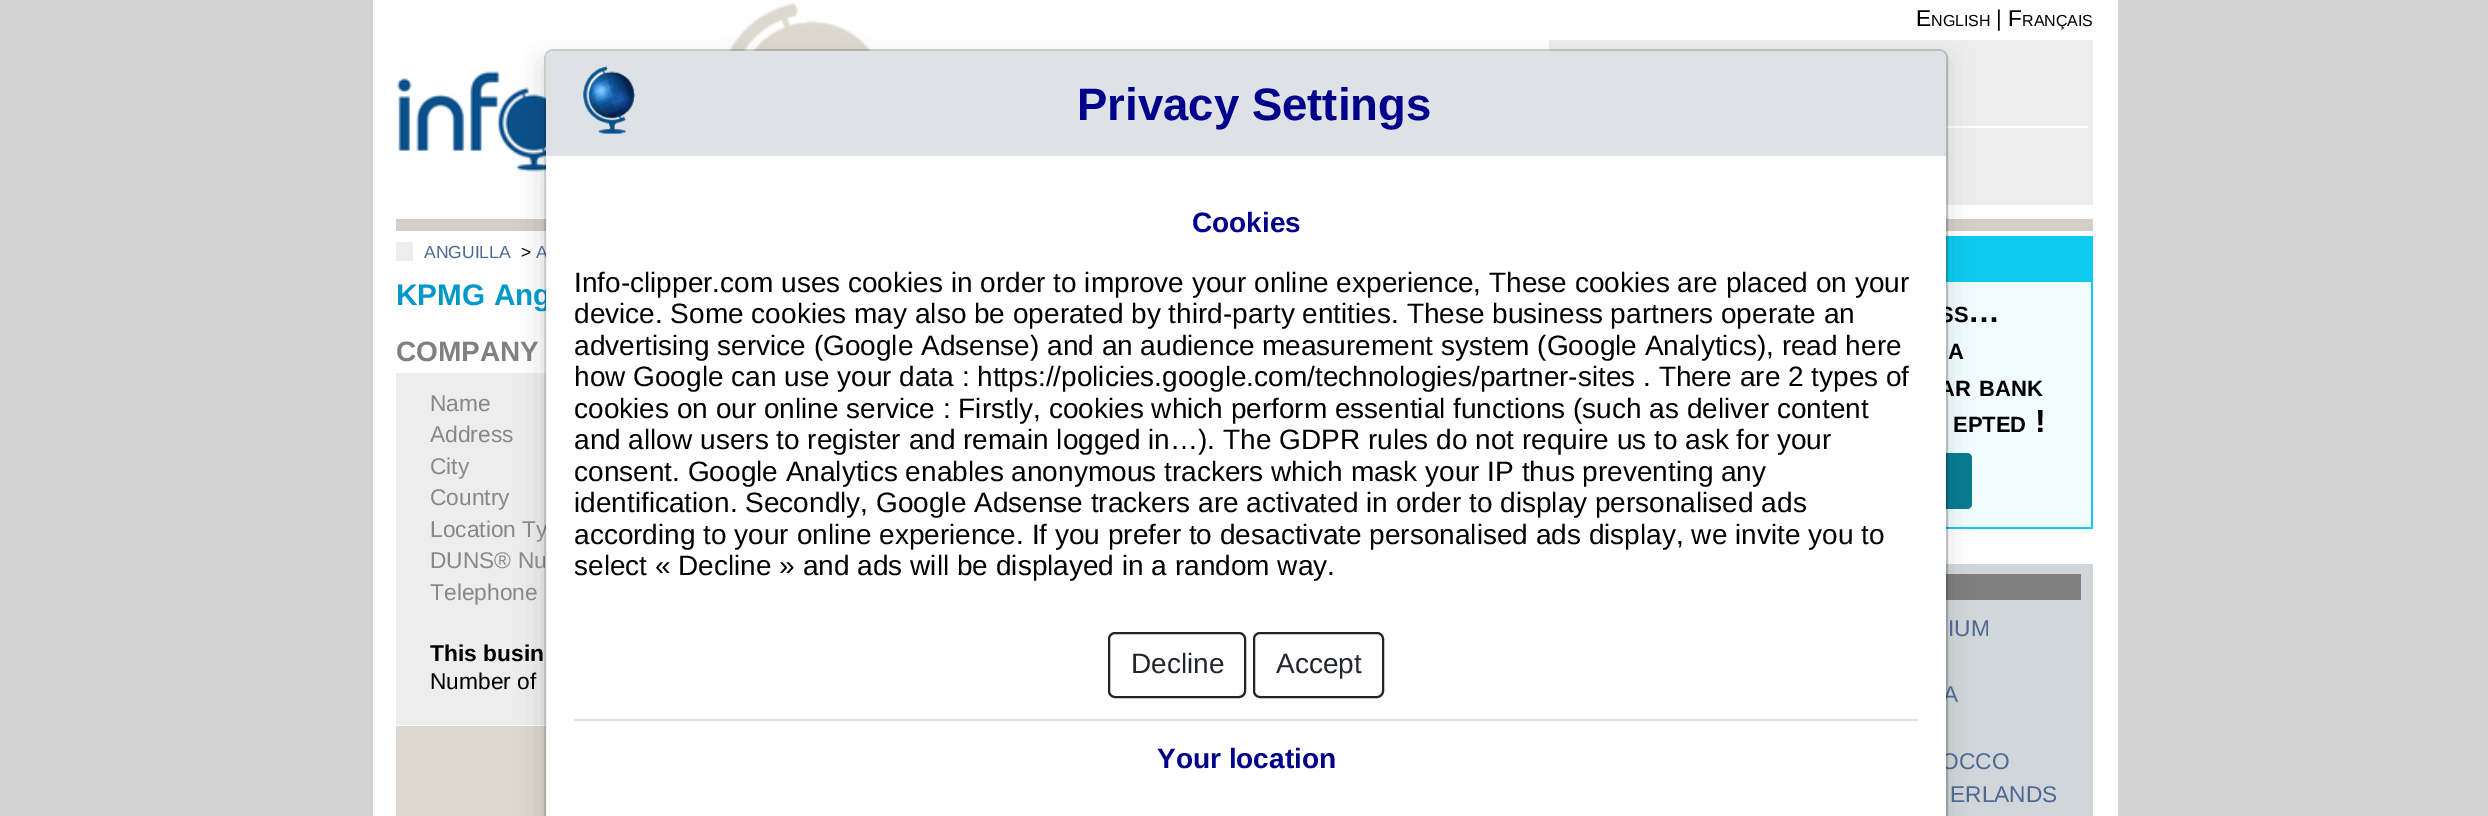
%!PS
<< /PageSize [2488 816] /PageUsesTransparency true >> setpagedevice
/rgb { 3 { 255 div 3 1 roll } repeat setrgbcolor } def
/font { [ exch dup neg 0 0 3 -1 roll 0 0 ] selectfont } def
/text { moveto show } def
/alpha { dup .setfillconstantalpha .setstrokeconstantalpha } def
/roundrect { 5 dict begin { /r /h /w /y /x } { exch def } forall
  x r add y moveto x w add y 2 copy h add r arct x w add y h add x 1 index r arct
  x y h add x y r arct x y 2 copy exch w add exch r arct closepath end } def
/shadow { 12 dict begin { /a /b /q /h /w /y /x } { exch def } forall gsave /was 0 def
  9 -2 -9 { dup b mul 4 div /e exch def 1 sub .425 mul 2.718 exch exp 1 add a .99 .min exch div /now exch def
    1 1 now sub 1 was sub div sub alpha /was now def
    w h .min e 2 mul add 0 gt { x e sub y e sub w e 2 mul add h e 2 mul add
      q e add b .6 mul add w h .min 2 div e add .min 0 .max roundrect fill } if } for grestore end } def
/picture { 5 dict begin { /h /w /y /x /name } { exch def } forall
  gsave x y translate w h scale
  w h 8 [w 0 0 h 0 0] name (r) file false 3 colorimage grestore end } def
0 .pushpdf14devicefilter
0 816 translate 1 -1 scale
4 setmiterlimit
211 211 211 rgb
0 0 2488 816 rectfill
255 255 255 rgb
373 0 1745 816 rectfill
211 207 196 rgb
396 219 1697 12 rectfill
(img_01.rgb) 396 3 490 215 picture
237 237 237 rgb
1549 40 544 165 rectfill
255 255 255 rgb
1946 126 142 2 rectfill
237 237 237 rgb
396 242 17 19 rectfill
396 373 150 352 rectfill
220 216 207 rgb
396 726 150 90 rectfill
13 202 240 rgb
2091 236 2 293 rectfill
1946 527 147 2 rectfill
1946 236 145 46 rectfill
240 252 254 rgb
1946 282 145 245 rectfill
8 122 145 rgb
1666 453 306 56 5 roundrect fill
209 214 218 rgb
1946 564 147 252 rectfill
128 128 128 rgb
1946 574 135 26 rectfill
gsave
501 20 moveto 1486 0 rlineto 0 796 rlineto -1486 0 rlineto closepath 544 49 moveto 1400 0 rlineto 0 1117 rlineto -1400 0 rlineto closepath eoclip newpath
0 0 0 rgb
544 63 1400 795 0 14 0.15 shadow
grestore
/LiberationSans-Regular 22.75 font
0 0 0 rgb
(E) 1916 26 text
/LiberationSans-Regular 16 font
(NGLISH) 1931 26 text
/LiberationSans-Regular 22.75 font
(| F) 1996 26 text
/LiberationSans-Regular 16 font
(RANÇAIS) 2022 26 text
/LiberationSans-Regular 17.5 font
78 104 148 rgb
(ANGUILLA) 424 258 text
0 0 0 rgb
(>) 521 258 text
78 104 148 rgb
(A) 536 258 text
/LiberationSans-Bold 29.75 font
0 152 201 rgb
(KPMG Ang) 396 305 text
/LiberationSans-Bold 28 font
128 128 128 rgb
(COMPANY) 396 361 text
/LiberationSans-Regular 22.75 font
136 136 136 rgb
(Name) 430 411 text
(Address) 430 442 text
(City) 430 474 text
(Country) 430 505 text
(Location Ty) 430 537 text
(DUNS® Nu) 430 568 text
(Telephone) 430 600 text
/LiberationSans-Bold 22.75 font
0 0 0 rgb
(This busin) 430 661 text
/LiberationSans-Regular 22.75 font
(Number of) 430 689 text
/LiberationSans-Bold 22 font
(SS) 1939 322 text
/LiberationSans-Bold 32 font
(…) 1968 322 text
/LiberationSans-Bold 22 font
(A) 1948 359 text
(AR) 1939 396 text
(BANK) 1979 396 text
(EPTED) 1953 432 text
/LiberationSans-Bold 32 font
(!) 2035 432 text
/LiberationSans-Regular 22.75 font
78 104 148 rgb
(IUM) 1948 636 text
(A) 1943 702 text
(OCCO) 1941 769 text
(ERLANDS) 1950 802 text
255 255 255 rgb
553 51 moveto 1386 0 rlineto 4 0 7 3 7 7 rcurveto 0 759 rlineto -1400 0 rlineto 0 -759 rlineto 0 -4 3 -7 7 -7 rcurveto closepath fill
0.2 alpha
0 0 0 rgb
2 setlinewidth
545 50 1402 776 8 roundrect stroke
1 alpha
222 226 230 rgb
553 51 moveto 1386 0 rlineto 4 0 7 3 7 7 rcurveto 0 98 rlineto -1400 0 rlineto 0 -98 rlineto 0 -4 3 -7 7 -7 rcurveto closepath fill
(img_02.rgb) 583 65 53 69 picture
/LiberationSans-Bold 45.5 font
0 0 139 rgb
(Privacy Settings) 1077 120 text
/LiberationSans-Bold 28 font
(Cookies) 1192 232 text
/LiberationSans-Regular 28 font
0 0 0 rgb
(Info-clipper.com uses cookies in order to improve your online experience, These cookies are placed on your) 574 292 text
(device. Some cookies may also be operated by third-party entities. These business partners operate an) 574 323 text
(advertising service \(Google Adsense\) and an audience measurement system \(Google Analytics\), read here) 574 355 text
(how Google can use your data : https://policies.google.com/technologies/partner-sites . There are 2 types of) 574 386 text
(cookies on our online service : Firstly, cookies which perform essential functions \(such as deliver content) 574 418 text
(and allow users to register and remain logged in…\). The GDPR rules do not require us to ask for your) 574 449 text
(consent. Google Analytics enables anonymous trackers which mask your IP thus preventing any) 574 481 text
(identification. Secondly, Google Adsense trackers are activated in order to display personalised ads) 574 512 text
(according to your online experience. If you prefer to desactivate personalised ads display, we invite you to) 574 544 text
(select « Decline » and ads will be displayed in a random way.) 574 575 text
33 37 41 rgb
1109 633 136 64 6 roundrect stroke
(Decline) 1131 673 text
1254 633 129 64 6 roundrect stroke
(Accept) 1276 673 text
222 226 230 rgb
574 719 1344 2 rectfill
/LiberationSans-Bold 28 font
0 0 139 rgb
(Your location) 1157 768 text
.poppdf14devicefilter showpage
